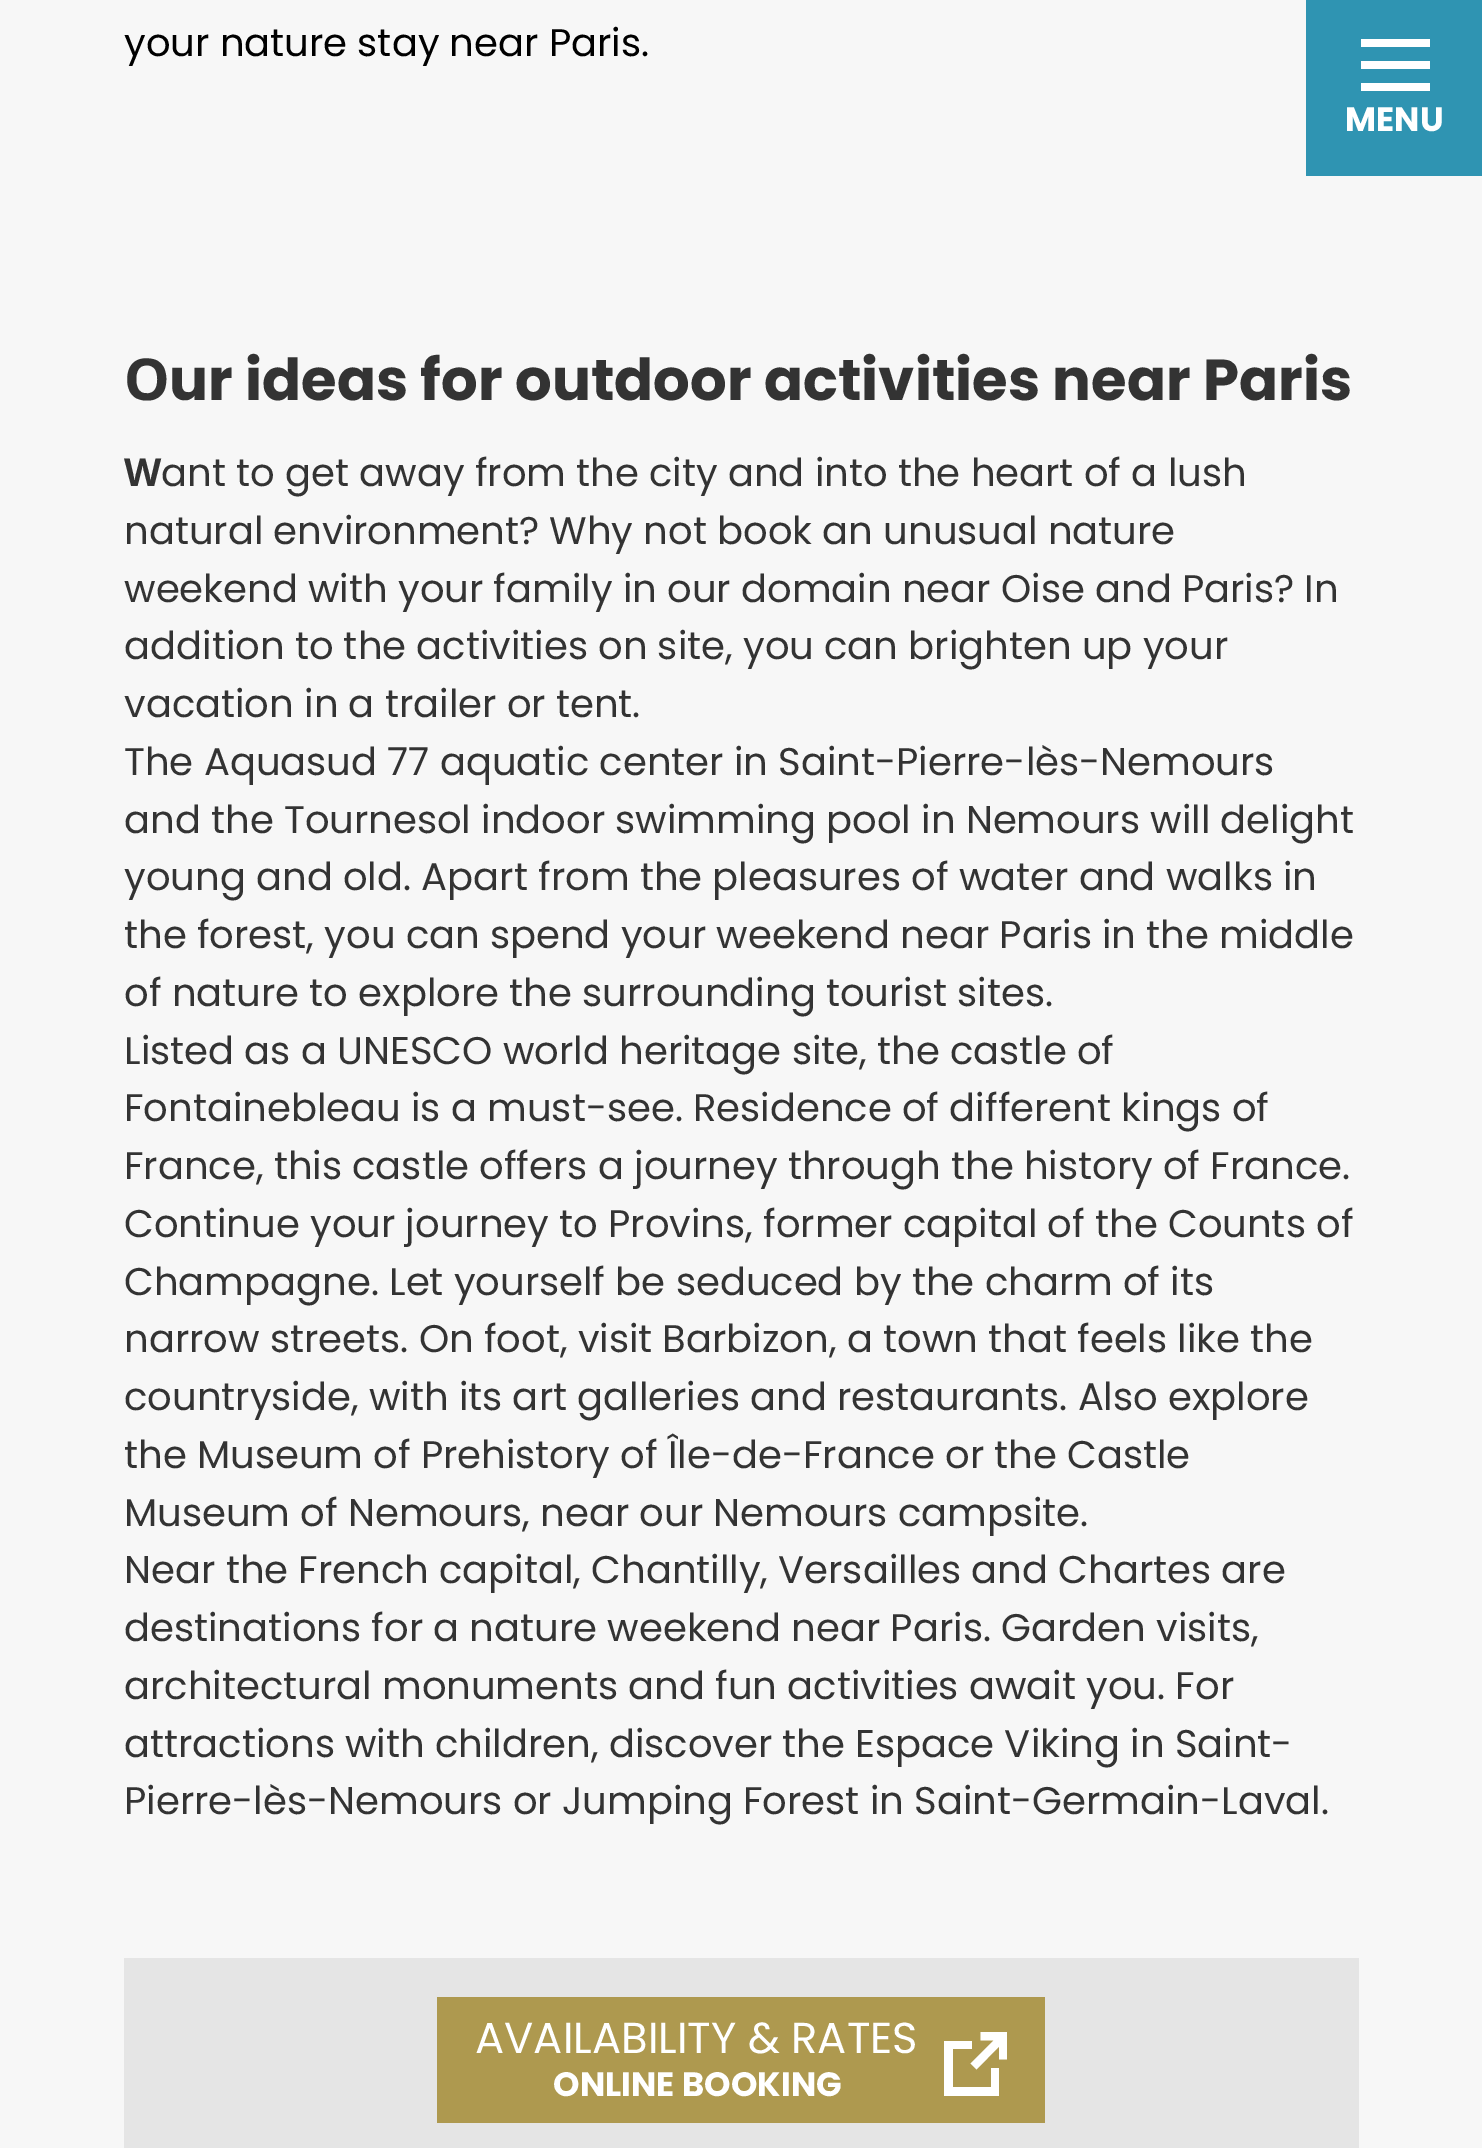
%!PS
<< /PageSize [1482 2148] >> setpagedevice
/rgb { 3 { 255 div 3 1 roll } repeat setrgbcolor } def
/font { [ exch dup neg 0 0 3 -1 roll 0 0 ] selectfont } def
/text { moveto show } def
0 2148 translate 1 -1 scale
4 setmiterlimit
247 247 247 rgb
0 0 1482 2148 rectfill
229 229 229 rgb
124 1958 1235 190 rectfill
47 148 178 rgb
1306 0 176 176 rectfill
255 255 255 rgb
1361 39 69 8 rectfill
1361 61 69 8 rectfill
1361 83 69 8 rectfill
174 153 79 rgb
437 1997 608 126 rectfill
255 255 255 rgb
991 2087 moveto -38 0 rlineto 0 -38 rlineto 19 0 rlineto 0 -8 rlineto -28 0 rlineto 0 55 rlineto 55 0 rlineto 0 -28 rlineto -8 0 rlineto closepath fill
gsave
943 2032 64 64 rectclip
980.5 2032 moveto 0 8.5 rlineto 13 0 rlineto -23 23 rlineto 6 6 rlineto 22.5 -23 rlineto 0 13 rlineto 8.5 0 rlineto 0 -27.5 rlineto closepath fill
grestore
/Poppins-Regular 38.5 font
0 0 0 rgb
(your nature stay near Paris.) 124 56 text
/NotoSans-Bold 57.75 font
51 51 51 rgb
(O) 124 400 text
/Poppins-Bold 57.75 font
(ur ideas for outdoor activities near Paris) 169 400 text
/NotoSans-Bold 38.5 font
(W) 124 486 text
/Poppins-Regular 38.5 font
(ant to get away from the city and into the heart of a lush) 161 486 text
(natural environment? Why not book an unusual nature) 124 544 text
(weekend with your family in our domain near Oise and Paris? In) 124 602 text
(addition to the activities on site, you can brighten up your) 124 659 text
(vacation in a trailer or tent.) 124 717 text
(The Aquasud 77 aquatic center in Saint-Pierre-lès-Nemours) 124 775 text
(and the Tournesol indoor swimming pool in Nemours will delight) 124 833 text
(young and old. Apart from the pleasures of water and walks in) 124 890 text
(the forest, you can spend your weekend near Paris in the middle) 124 948 text
(of nature to explore the surrounding tourist sites.) 124 1006 text
(Listed as a UNESCO world heritage site, the castle of) 124 1064 text
(Fontainebleau is a must-see. Residence of different kings of) 124 1121 text
(France, this castle offers a journey through the history of France.) 124 1179 text
(Continue your journey to Provins, former capital of the Counts of) 124 1237 text
(Champagne. Let yourself be seduced by the charm of its) 124 1295 text
(narrow streets. On foot, visit Barbizon, a town that feels like the) 124 1352 text
(countryside, with its art galleries and restaurants. Also explore) 124 1410 text
(the Museum of Prehistory of Île-de-France or the Castle) 124 1468 text
(Museum of Nemours, near our Nemours campsite.) 124 1526 text
(Near the French capital, Chantilly, Versailles and Chartes are) 124 1583 text
(destinations for a nature weekend near Paris. Garden visits,) 124 1641 text
(architectural monuments and fun activities await you. For) 124 1699 text
(attractions with children, discover the Espace Viking in Saint-) 124 1757 text
(Pierre-lès-Nemours or Jumping Forest in Saint-Germain-Laval.) 124 1814 text
/Poppins-Bold 33.75 font
255 255 255 rgb
(MENU) 1345 131 text
/Poppins-Regular 43.25 font
(AVAILABILITY & RATES) 475 2053 text
/Poppins-Bold 33.75 font
(ONLINE BOOKING) 553 2096 text
showpage
